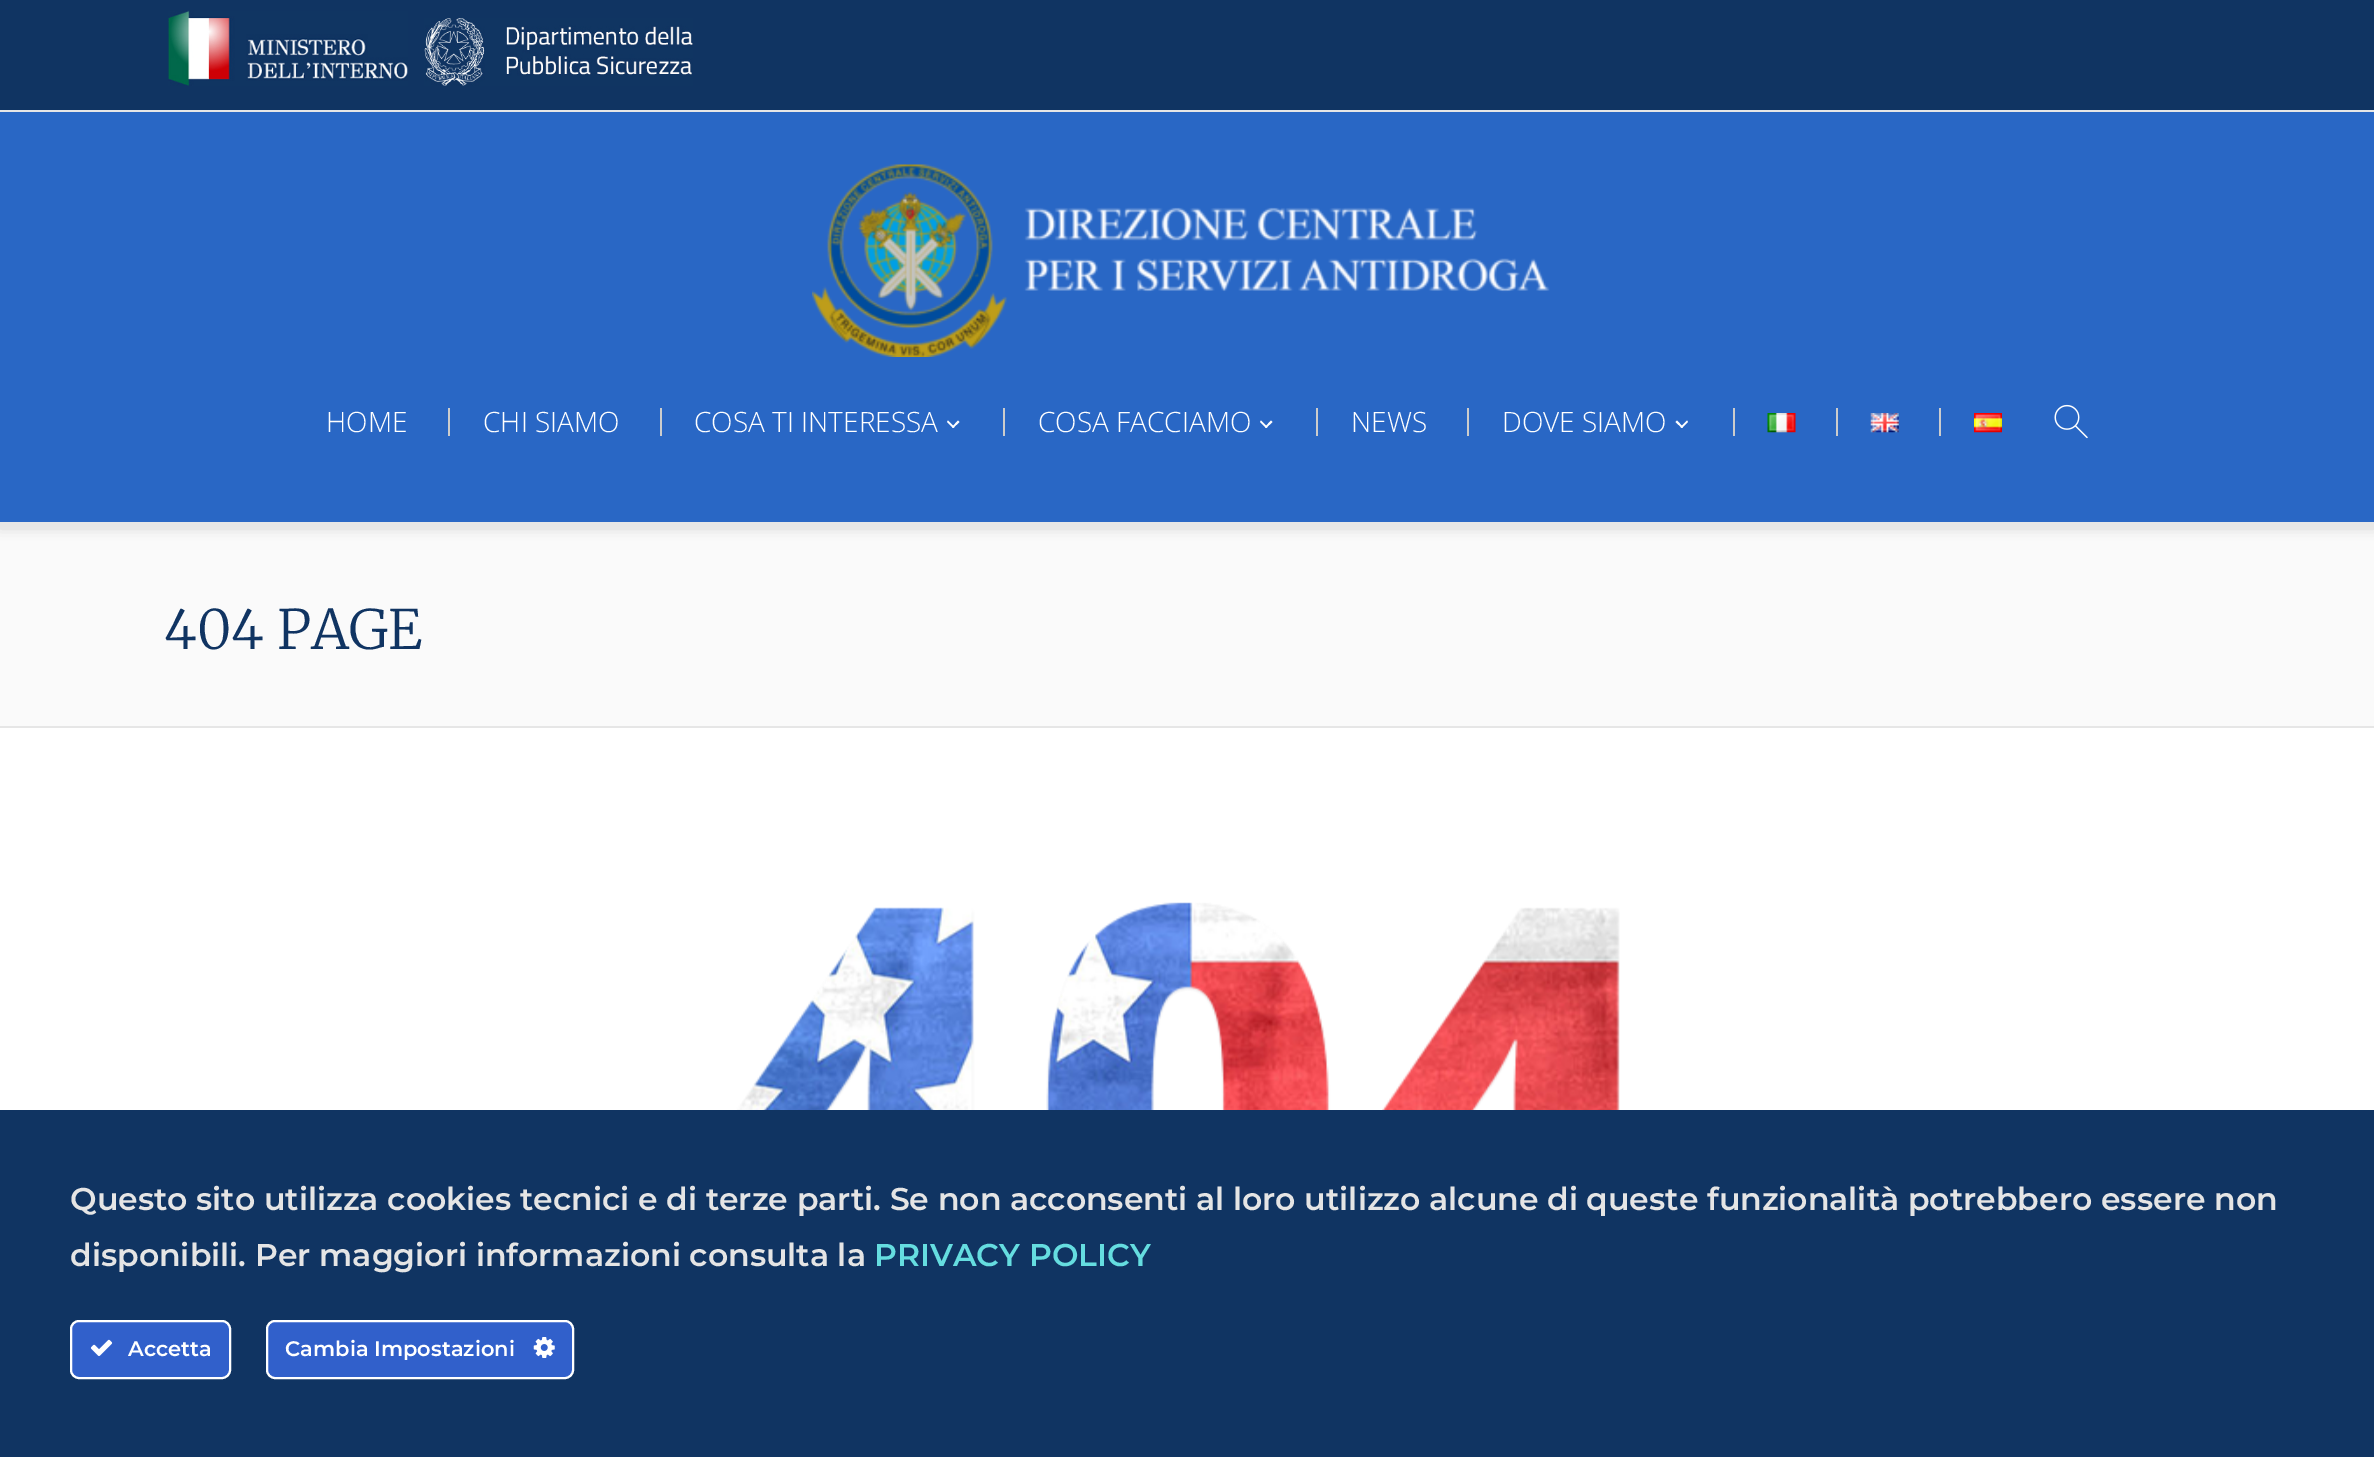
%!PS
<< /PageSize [2374 1457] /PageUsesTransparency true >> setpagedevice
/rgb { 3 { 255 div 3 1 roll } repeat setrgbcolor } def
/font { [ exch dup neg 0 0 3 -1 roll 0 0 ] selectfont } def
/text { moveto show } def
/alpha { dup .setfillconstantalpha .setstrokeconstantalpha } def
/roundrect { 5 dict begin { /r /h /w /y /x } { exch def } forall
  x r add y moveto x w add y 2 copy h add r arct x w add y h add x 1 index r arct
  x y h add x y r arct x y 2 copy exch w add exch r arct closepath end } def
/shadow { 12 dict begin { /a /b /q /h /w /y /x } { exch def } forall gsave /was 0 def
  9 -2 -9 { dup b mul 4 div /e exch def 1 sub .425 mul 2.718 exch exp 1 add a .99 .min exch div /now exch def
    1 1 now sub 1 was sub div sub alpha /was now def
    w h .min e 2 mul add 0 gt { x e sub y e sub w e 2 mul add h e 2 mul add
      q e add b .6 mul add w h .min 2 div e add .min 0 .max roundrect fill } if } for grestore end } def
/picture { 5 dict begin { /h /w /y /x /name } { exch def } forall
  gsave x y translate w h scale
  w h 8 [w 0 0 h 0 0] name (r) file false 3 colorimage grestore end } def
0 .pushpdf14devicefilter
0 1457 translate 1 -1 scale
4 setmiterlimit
255 255 255 rgb
0 0 2374 1457 rectfill
250 250 250 rgb
0 527 2374 199 rectfill
0 0 0 rgb
0 109 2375 416 0 7 0.25 shadow
16 52 98 rgb
0 0 2374 110 rectfill
(img_01.rgb) 168 10 240 76 picture
(img_02.rgb) 424 18 269 68 picture
41 103 197 rgb
0 112 2374 410 rectfill
230 230 230 rgb
0 110 2374 2 rectfill
0 522 2374 5 rectfill
(img_03.rgb) 812 164 738 193 picture
204 204 204 rgb
448 408 2 28 rectfill
660 408 2 28 rectfill
255 255 255 rgb
952 427 moveto 6 -6.5 rlineto 1.5 1.5 rlineto -6.5 6 rlineto closepath fill
947 422 moveto 1 -1.5 rlineto 6.5 6.5 rlineto -1.5 1 rlineto closepath fill
204 204 204 rgb
1003 408 2 28 rectfill
255 255 255 rgb
1265 427 moveto 6 -6.5 rlineto 1.5 1.5 rlineto -6.5 6 rlineto closepath fill
1260 422 moveto 1 -1.5 rlineto 6.5 6.5 rlineto -1.5 1 rlineto closepath fill
204 204 204 rgb
1316 408 2 28 rectfill
1467 408 2 28 rectfill
255 255 255 rgb
1680.5 427 moveto 6.5 -6.5 rlineto 1 1.5 rlineto -6 6 rlineto closepath fill
1675.5 422 moveto 1.5 -1.5 rlineto 6 6.5 rlineto -1 1 rlineto closepath fill
204 204 204 rgb
1733 408 2 28 rectfill
(img_04.rgb) 1767 413 29 20 picture
1836 408 2 28 rectfill
(img_05.rgb) 1870 413 29 20 picture
1939 408 2 28 rectfill
(img_06.rgb) 1974 413 28 20 picture
(img_07.rgb) 2054 404 34 35 picture
230 230 230 rgb
0 726 2374 2 rectfill
(img_08.rgb) 736 902 884 208 picture
16 52 98 rgb
0 1110 2374 347 rectfill
49 96 203 rgb
71 1321 159 57 8 roundrect gsave fill grestore
255 255 255 rgb
2 setlinewidth
stroke
(img_09.rgb) 90 1339 23 17 picture
49 96 203 rgb
267 1321 306 57 8 roundrect gsave fill grestore
255 255 255 rgb
stroke
(img_10.rgb) 533 1337 22 21 picture
/OpenSans-Light 28 font
(HOME) 326 432 text
(CHI SIAMO) 483 432 text
(COSA TI INTERESSA) 694 432 text
(COSA FACCIAMO) 1038 432 text
(NEWS) 1351 432 text
(DOVE SIAMO) 1502 432 text
/Merriweather-Light 54.25 font
16 52 98 rgb
(404 PAGE) 164 649 text
/Montserrat-SemiBold 31.5 font
229 229 229 rgb
(Questo sito utilizza cookies tecnici e di terze parti. Se non acconsenti al loro utilizzo alcune di queste funzionalità potrebbero essere non) 70 1210 text
(disponibili. Per maggiori informazioni consulta la) 70 1266 text
101 221 224 rgb
(PRIVACY POLICY) 874 1266 text
/Montserrat-SemiBold 21 font
255 255 255 rgb
(Accetta) 128 1356 text
(Cambia Impostazioni) 285 1356 text
.poppdf14devicefilter showpage
